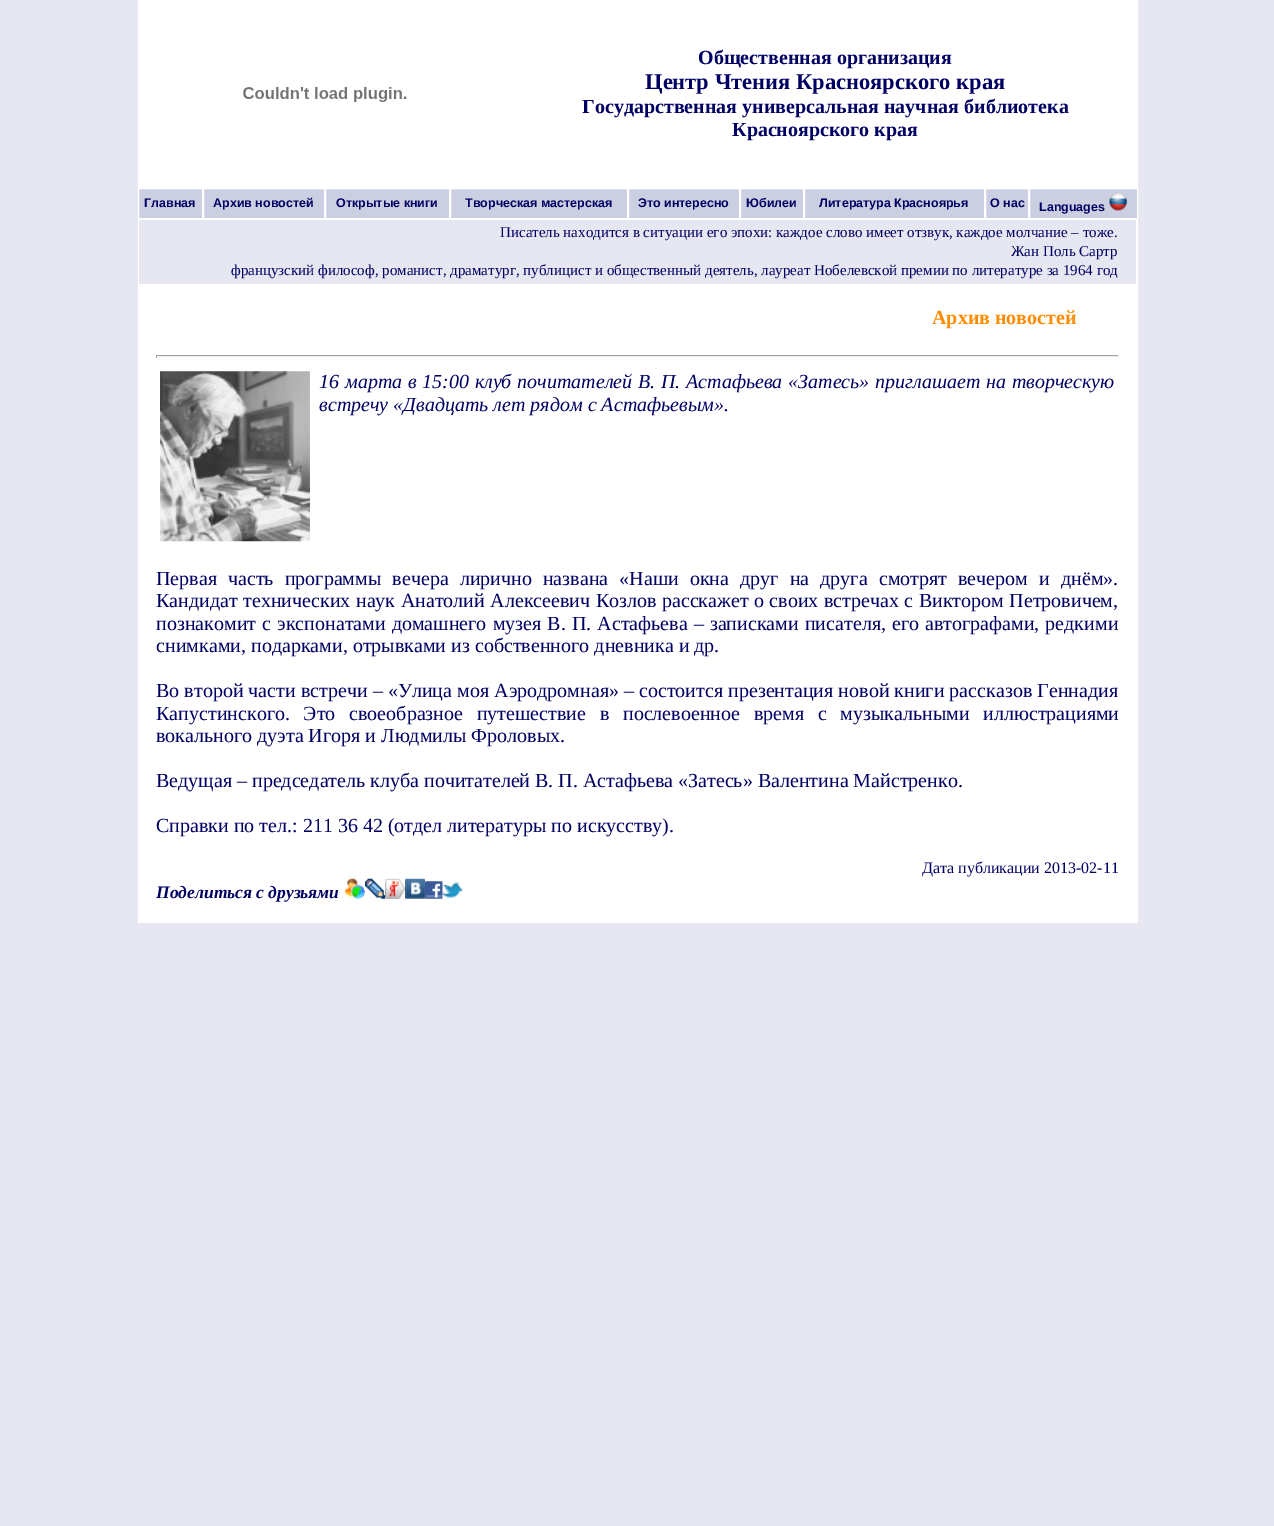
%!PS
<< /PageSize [1274 1526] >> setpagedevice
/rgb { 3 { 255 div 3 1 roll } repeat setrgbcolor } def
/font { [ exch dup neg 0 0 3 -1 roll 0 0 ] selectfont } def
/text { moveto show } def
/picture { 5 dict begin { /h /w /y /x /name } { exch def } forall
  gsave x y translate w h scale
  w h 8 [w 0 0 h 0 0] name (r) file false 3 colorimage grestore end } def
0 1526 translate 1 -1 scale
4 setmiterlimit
230 231 240 rgb
0 0 1274 1526 rectfill
255 255 255 rgb
138 0 1000 188 rectfill
(img_01.rgb) 243 87 164 15 picture
204 207 225 rgb
139 189 998 29 rectfill
255 255 255 rgb
138.5 188.5 64 30 rectstroke
203.5 188.5 121 30 rectstroke
325.5 188.5 124 30 rectstroke
450.5 188.5 177 30 rectstroke
628.5 188.5 111 30 rectstroke
740.5 188.5 63 30 rectstroke
804.5 188.5 180 30 rectstroke
985.5 188.5 43 30 rectstroke
1029.5 188.5 108 30 rectstroke
(img_02.rgb) 1108 192 20 19 picture
138 219 1000 704 rectfill
230 231 240 rgb
139 220 997 64 rectfill
159 159 159 rgb
156 355 963 1 rectfill
238 238 238 rgb
1118 355 1 3 rectfill
156 356 963 1 rectfill
159 159 159 rgb
156 355 1 3 rectfill
(img_03.rgb) 160 371 150 171 picture
(img_04.rgb) 345 878 20 21 picture
(img_05.rgb) 365 878 20 21 picture
(img_06.rgb) 385 878 20 21 picture
(img_07.rgb) 405 878 20 21 picture
(img_08.rgb) 425 881 18 18 picture
(img_09.rgb) 442 882 21 16 picture
/LiberationSerif-Bold 20 font
0 0 99 rgb
(Общественная организация) 698 64 text
/LiberationSerif-Bold 22.5 font
(Центр Чтения Красноярского края) 645 89 text
/LiberationSerif-Bold 20 font
(Государственная универсальная научная библиотека) 582 113 text
(Красноярского края) 732 136 text
/LiberationSans-Bold 12.5 font
(Главная) 144 207 text
(Архив новостей) 213 207 text
(Открытые книги) 336 207 text
(Творческая мастерская) 465 207 text
(Это интересно) 638 207 text
(Юбилеи) 746 207 text
(Литература Красноярья) 819 207 text
(О нас) 990 207 text
(Languages) 1039 211 text
/LiberationSerif-Regular 15 font
(Писатель находится в ситуации его эпохи: каждое слово имеет отзвук, каждое молчание – тоже.) 500 237 text
(Жан Поль Сартр) 1011 256 text
(французский философ, романист, драматург, публицист и общественный деятель, лауреат Нобелевской премии по литературе за 1964 год) 231 275 text
/LiberationSerif-Bold 20 font
255 140 0 rgb
(Архив новостей) 932 324 text
/LiberationSerif-Italic 20 font
0 0 99 rgb
319 388 moveto 0.75 0 32 (16 марта в 15:00 клуб почитателей В. П. Астафьева «Затесь» приглашает на творческую) widthshow
(встречу «Двадцать лет рядом с Астафьевым».) 319 411 text
/LiberationSerif-Regular 20 font
156 585 moveto 6.1 0 32 (Первая часть программы вечера лирично названа «Наши окна друг на друга смотрят вечером и днём».) widthshow
156 607 moveto 0.5 0 32 (Кандидат технических наук Анатолий Алексеевич Козлов расскажет о своих встречах с Виктором Петровичем,) widthshow
156 630 moveto 1.1 0 32 (познакомит с экспонатами домашнего музея В. П. Астафьева – записками писателя, его автографами, редкими) widthshow
(снимками, подарками, отрывками из собственного дневника и др.) 156 652 text
156 697 moveto 0.1 0 32 (Во второй части встречи – «Улица моя Аэродромная» – состоится презентация новой книги рассказов Геннадия) widthshow
156 720 moveto 8.75 0 32 (Капустинского. Это своеобразное путешествие в послевоенное время с музыкальными иллюстрациями) widthshow
(вокального дуэта Игоря и Людмилы Фроловых.) 156 742 text
(Ведущая – председатель клуба почитателей В. П. Астафьева «Затесь» Валентина Майстренко.) 156 787 text
(Справки по тел.: 211 36 42 \(отдел литературы по искусству\).) 156 832 text
/LiberationSerif-Regular 16 font
(Дата публикации 2013-02-11) 922 873 text
/LiberationSerif-BoldItalic 17.5 font
(Поделиться с друзьями) 156 898 text
showpage
